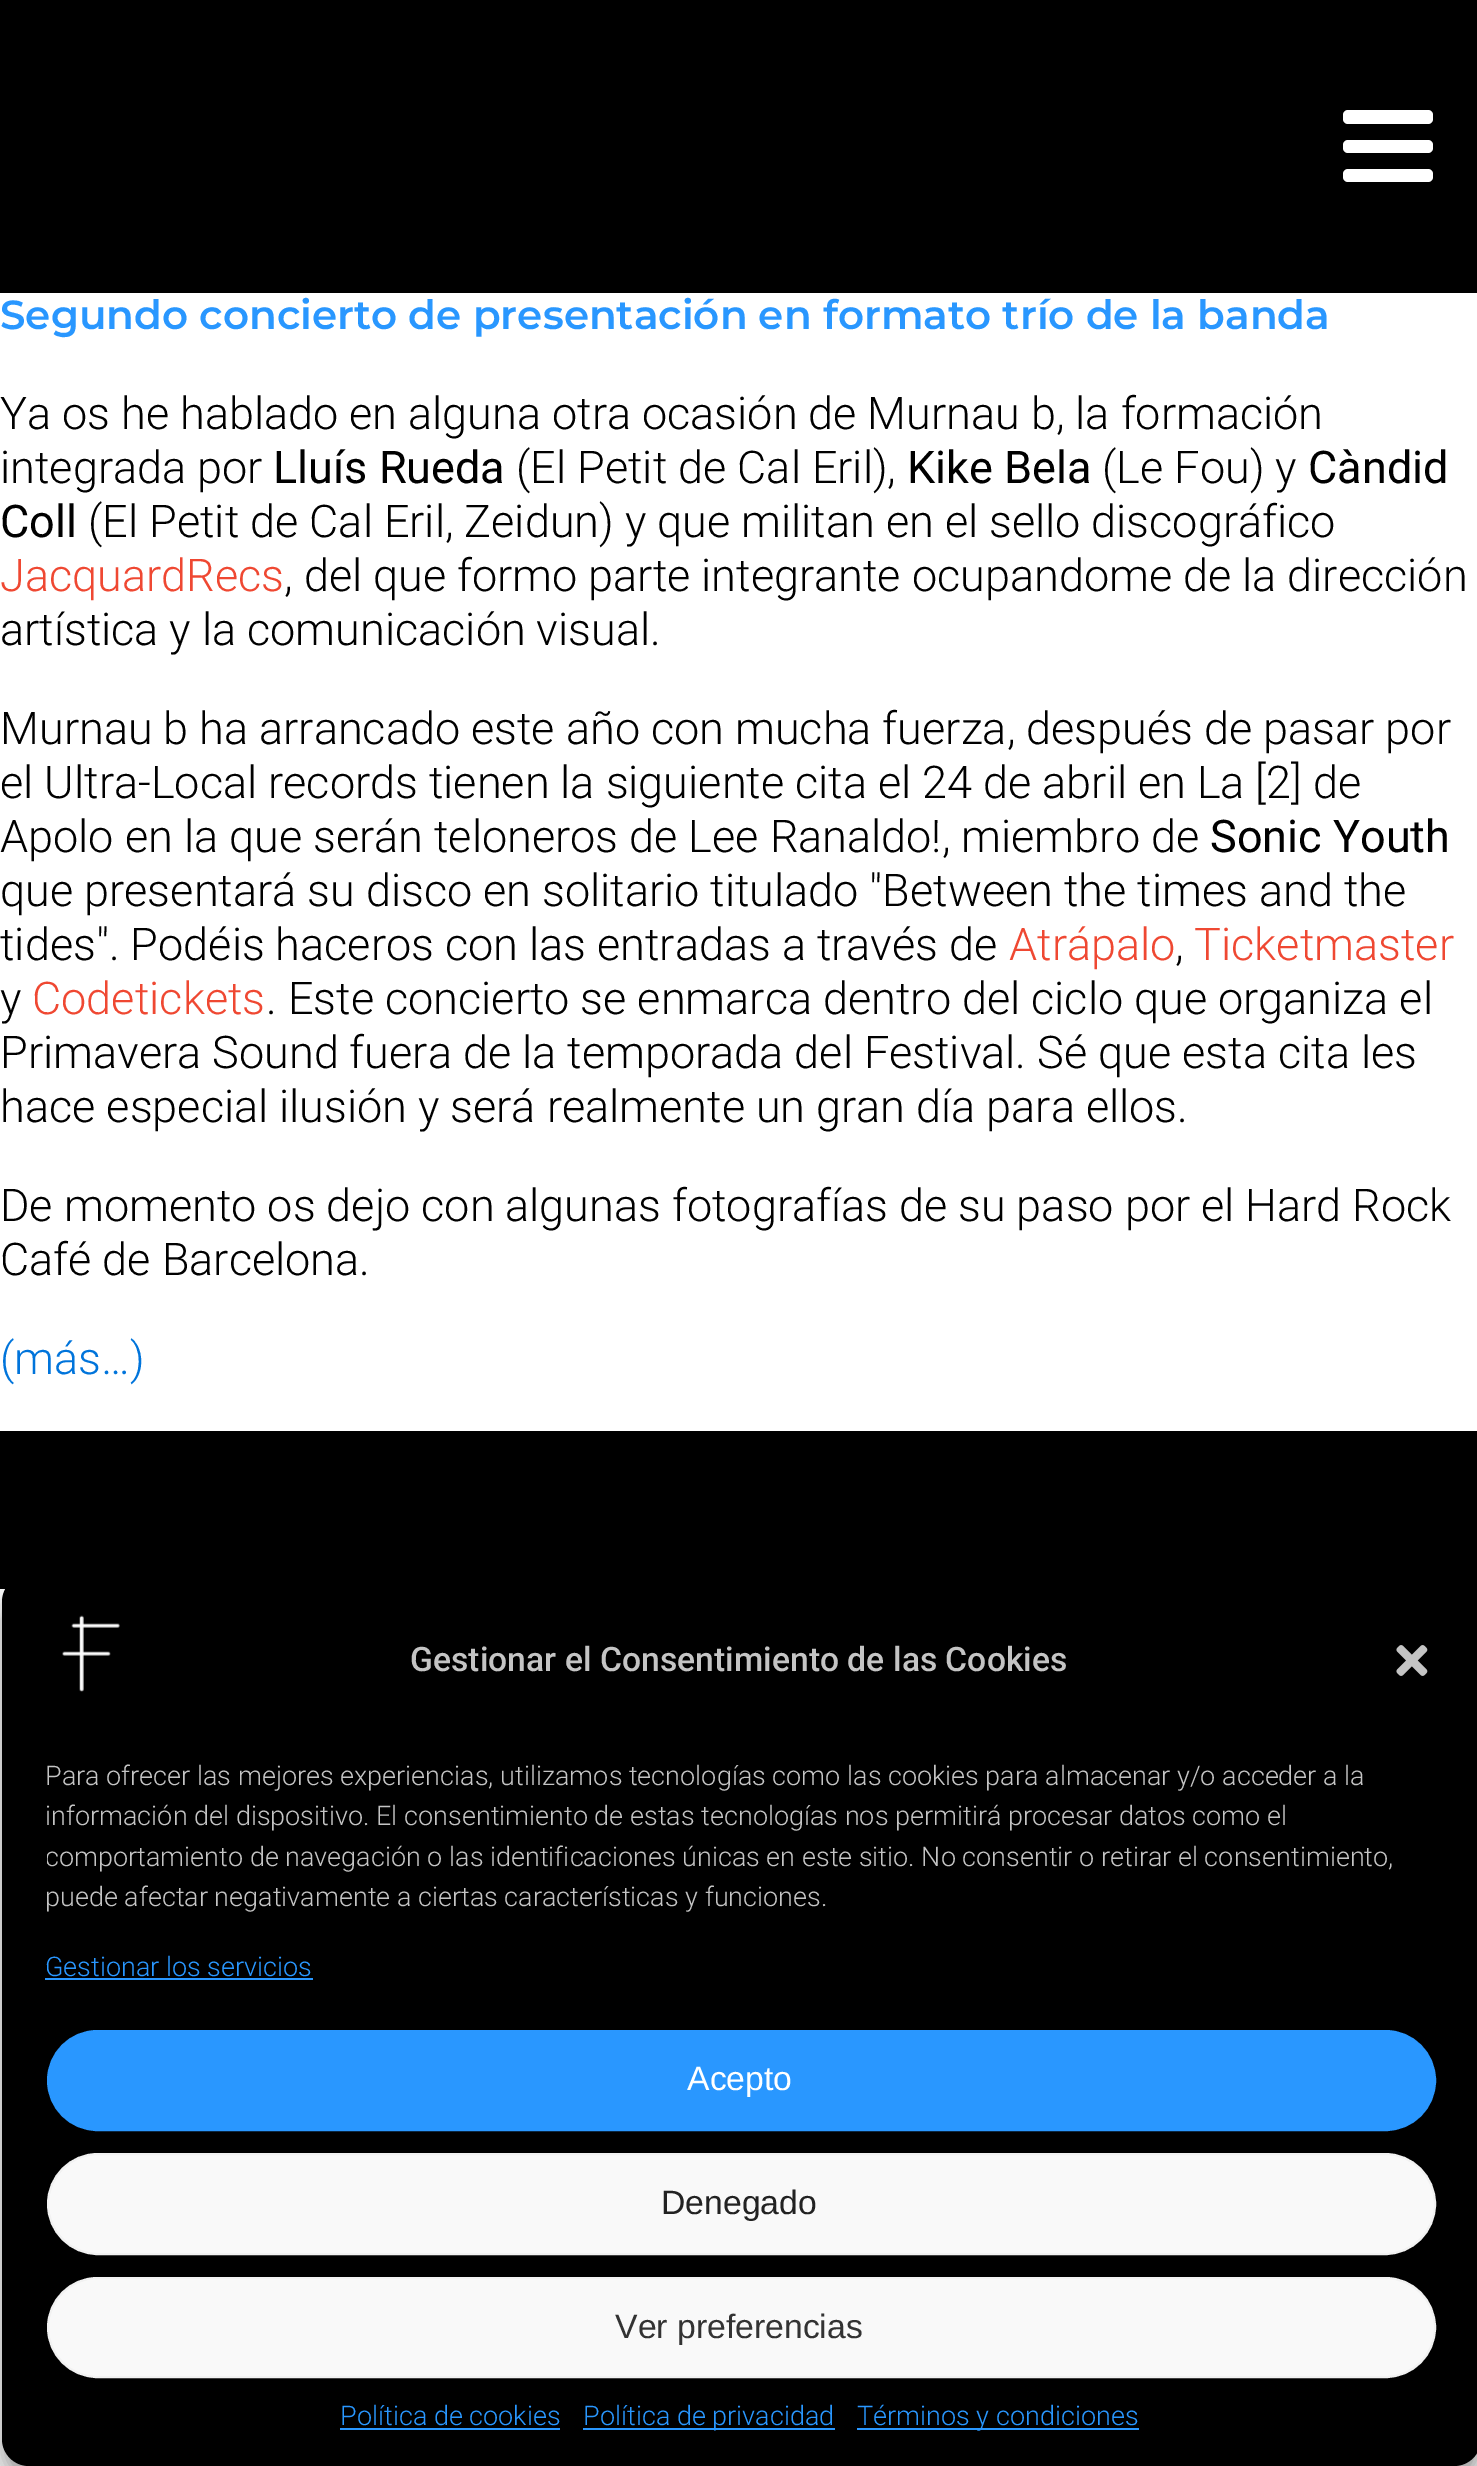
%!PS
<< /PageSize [1477 2466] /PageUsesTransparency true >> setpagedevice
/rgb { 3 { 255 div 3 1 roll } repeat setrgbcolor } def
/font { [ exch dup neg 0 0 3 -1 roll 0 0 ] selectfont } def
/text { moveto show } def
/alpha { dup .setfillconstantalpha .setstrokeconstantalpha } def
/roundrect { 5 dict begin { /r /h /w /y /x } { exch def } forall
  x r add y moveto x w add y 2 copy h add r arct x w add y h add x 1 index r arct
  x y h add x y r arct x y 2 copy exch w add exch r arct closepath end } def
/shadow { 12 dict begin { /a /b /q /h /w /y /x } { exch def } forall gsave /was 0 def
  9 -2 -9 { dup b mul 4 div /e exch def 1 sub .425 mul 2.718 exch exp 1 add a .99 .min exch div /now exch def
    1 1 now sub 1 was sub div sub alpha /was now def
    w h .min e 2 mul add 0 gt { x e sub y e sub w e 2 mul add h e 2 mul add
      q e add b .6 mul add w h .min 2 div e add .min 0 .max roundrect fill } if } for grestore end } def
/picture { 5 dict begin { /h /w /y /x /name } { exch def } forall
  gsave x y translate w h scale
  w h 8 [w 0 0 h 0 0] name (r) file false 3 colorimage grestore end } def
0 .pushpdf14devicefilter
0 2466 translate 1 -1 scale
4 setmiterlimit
255 255 255 rgb
0 0 1477 2466 rectfill
0 0 0 rgb
0 0 1477 293 rectfill
255 255 255 rgb
1343 110 90 14 5 roundrect fill
1343 140 90 13 5 roundrect fill
1343 169 90 13 5 roundrect fill
0 0 0 rgb
0 1431 1477 158 rectfill
2 1589 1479 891 27 7 0.23 shadow
2 1598 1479 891 27 22.5 0.19 shadow
2 1575 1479 891 27 roundrect fill
(img_01.rgb) 62 1615 58 77 picture
(img_02.rgb) 1396 1645 32 31 picture
41 151 255 rgb
45 1978 268 2 rectfill
48 2031 1387 99 49.5 roundrect gsave fill grestore
2 setlinewidth
stroke
249 249 249 rgb
48 2154 1387 100 50 roundrect gsave fill grestore
242 242 242 rgb
stroke
249 249 249 rgb
48 2278 1387 99 49.5 roundrect gsave fill grestore
242 242 242 rgb
stroke
41 151 255 rgb
340 2428 220 2 rectfill
583 2428 252 2 rectfill
857 2428 282 2 rectfill
/Montserrat-SemiBold 40.5 font
(Segundo concierto de presentación en formato trío de la banda) 0 329 text
/Roboto-Light 45 font
0 0 0 rgb
(Ya os he hablado en alguna otra ocasión de Murnau b, la formación) 0 429 text
(integrada por) 0 483 text
/Roboto-Regular 45 font
(Lluís Rueda) 273 483 text
/Roboto-Light 45 font
(\(El Petit de Cal Eril\),) 516 483 text
/Roboto-Regular 45 font
(Kike Bela) 907 483 text
/Roboto-Light 45 font
(\(Le Fou\) y) 1102 483 text
/Roboto-Regular 45 font
(Càndid) 1308 483 text
(Coll) 0 537 text
/Roboto-Light 45 font
(\(El Petit de Cal Eril, Zeidun\) y que militan en el sello discográfico) 88 537 text
239 72 50 rgb
(JacquardRecs) 0 591 text
0 0 0 rgb
(, del que formo parte integrante ocupandome de la dirección) 284 591 text
(artística y la comunicación visual.) 0 645 text
(Murnau b ha arrancado este año con mucha fuerza, después de pasar por) 0 744 text
(el Ultra-Local records tienen la siguiente cita el 24 de abril en La [2] de) 0 798 text
(Apolo en la que serán teloneros de Lee Ranaldo!, miembro de) 0 852 text
/Roboto-Regular 45 font
(Sonic Youth) 1210 852 text
/Roboto-Light 45 font
(que presentará su disco en solitario titulado "Between the times and the) 0 906 text
(tides". Podéis haceros con las entradas a través de) 0 960 text
239 72 50 rgb
(Atrápalo) 1009 960 text
0 0 0 rgb
(,) 1175 960 text
239 72 50 rgb
(Ticketmaster) 1194 960 text
0 0 0 rgb
(y) 0 1014 text
239 72 50 rgb
(Codetickets) 32 1014 text
0 0 0 rgb
(. Este concierto se enmarca dentro del ciclo que organiza el) 266 1014 text
(Primavera Sound fuera de la temporada del Festival. Sé que esta cita les) 0 1068 text
(hace especial ilusión y será realmente un gran día para ellos.) 0 1122 text
(De momento os dejo con algunas fotografías de su paso por el Hard Rock) 0 1221 text
(Café de Barcelona.) 0 1275 text
0 116 219 rgb
(\(más…\)) 0 1374 text
/Roboto-Medium 33.75 font
196 196 196 rgb
(Gestionar el Consentimiento de las Cookies) 410 1671 text
/Roboto-Light 27 font
(Para ofrecer las mejores experiencias, utilizamos tecnologías como las cookies para almacenar y/o acceder a la) 45 1785 text
(información del dispositivo. El consentimiento de estas tecnologías nos permitirá procesar datos como el) 45 1825 text
gsave
47 1755 1389 173 rectclip
(comportamiento de navegación o las identificaciones únicas en este sitio. No consentir o retirar el consentimiento,) 45 1866 text
grestore
(puede afectar negativamente a ciertas características y funciones.) 45 1906 text
41 151 255 rgb
(Gestionar los servicios) 45 1976 text
/LiberationSans-Regular 33.75 font
255 255 255 rgb
(Acepto) 687 2090 text
34 34 34 rgb
(Denegado) 661 2214 text
51 51 51 rgb
(Ver preferencias) 615 2338 text
/Roboto-Light 27 font
41 151 255 rgb
(Política de cookies) 340 2425 text
(Política de privacidad) 583 2425 text
(Términos y condiciones) 857 2425 text
.poppdf14devicefilter showpage
